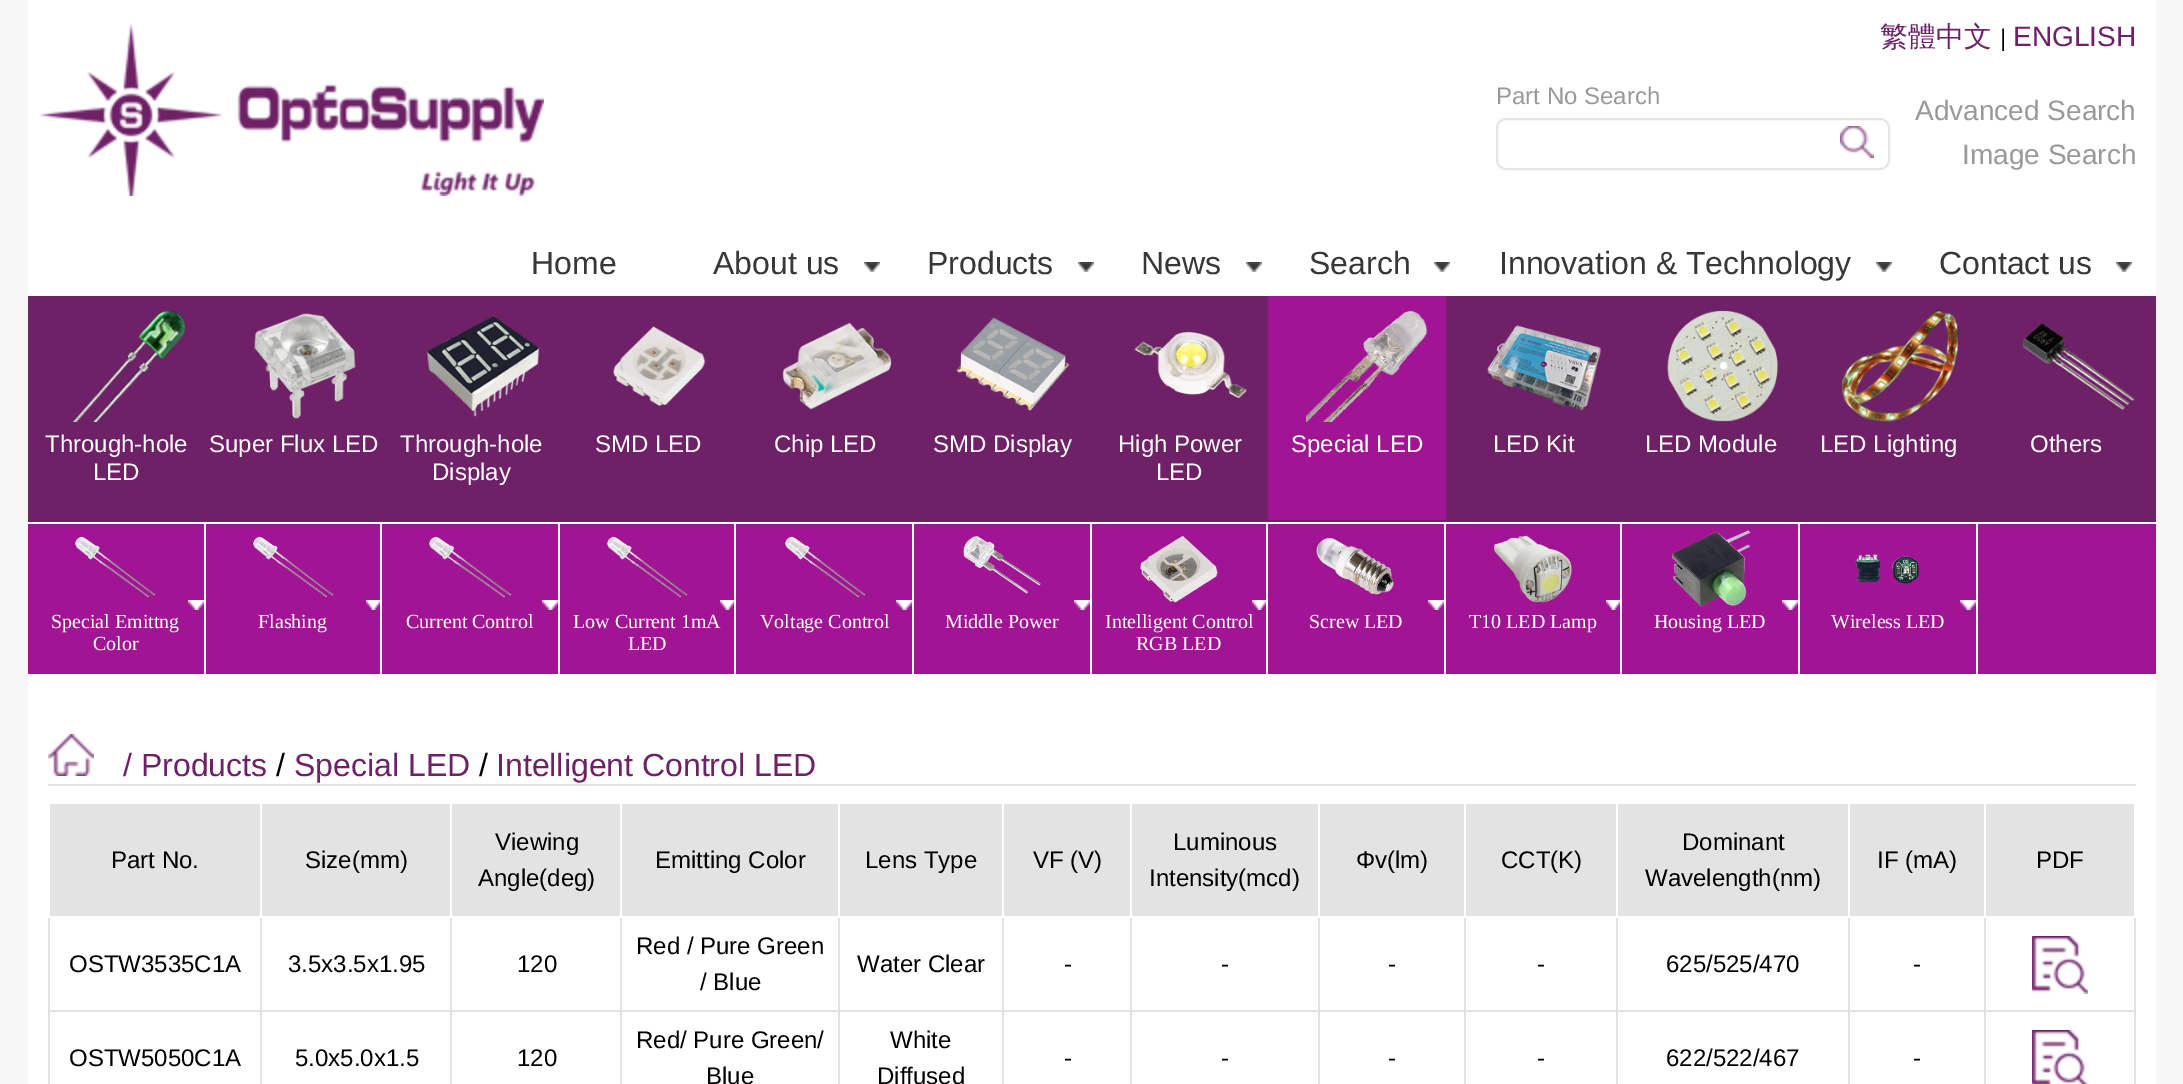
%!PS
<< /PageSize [2183 1084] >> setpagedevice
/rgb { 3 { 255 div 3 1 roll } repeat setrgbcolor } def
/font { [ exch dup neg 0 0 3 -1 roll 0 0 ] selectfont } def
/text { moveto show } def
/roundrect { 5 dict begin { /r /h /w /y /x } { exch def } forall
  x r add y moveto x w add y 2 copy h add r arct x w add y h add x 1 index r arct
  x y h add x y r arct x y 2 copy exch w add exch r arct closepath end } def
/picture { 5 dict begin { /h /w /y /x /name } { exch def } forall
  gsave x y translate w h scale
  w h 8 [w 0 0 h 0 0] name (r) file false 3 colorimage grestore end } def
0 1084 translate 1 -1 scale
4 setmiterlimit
246 246 246 rgb
0 0 2183 1084 rectfill
255 255 255 rgb
28 0 2128 524 rectfill
(img_01.rgb) 40 24 504 172 picture
229 229 229 rgb
2 setlinewidth
1497 119 392 50 9 roundrect stroke
(img_02.rgb) 1840 126 34 32 picture
(img_03.rgb) 864 262 16 10 picture
(img_03.rgb) 1078 262 16 10 picture
(img_03.rgb) 1246 262 16 10 picture
(img_03.rgb) 1434 262 16 10 picture
(img_03.rgb) 1876 262 16 10 picture
(img_03.rgb) 2116 262 16 10 picture
111 33 104 rgb
28 296 2128 226 rectfill
(img_04.rgb) 71 310 115 112 picture
(img_05.rgb) 254 313 102 106 picture
(img_06.rgb) 426 315 114 102 picture
(img_07.rgb) 613 326 93 80 picture
(img_08.rgb) 782 322 110 88 picture
(img_09.rgb) 956 317 113 94 picture
(img_10.rgb) 1134 331 113 68 picture
161 20 147 rgb
1268 296 178 224 rectfill
(img_11.rgb) 1306 310 122 112 picture
(img_12.rgb) 1487 325 114 85 picture
(img_13.rgb) 1667 310 111 112 picture
(img_14.rgb) 1842 310 116 112 picture
(img_15.rgb) 2023 323 112 87 picture
28 524 2128 150 rectfill
255 255 255 rgb
204 524 2 150 rectfill
(img_16.rgb) 188 600 16 10 picture
(img_17.rgb) 75 536 81 62 picture
380 524 2 150 rectfill
(img_18.rgb) 366 600 14 10 picture
(img_19.rgb) 253 536 81 62 picture
558 524 2 150 rectfill
(img_16.rgb) 542 600 16 10 picture
(img_20.rgb) 429 536 83 62 picture
734 524 2 150 rectfill
(img_18.rgb) 720 600 14 10 picture
(img_17.rgb) 607 536 81 62 picture
912 524 2 150 rectfill
(img_16.rgb) 896 600 16 10 picture
(img_19.rgb) 785 536 81 62 picture
1090 524 2 150 rectfill
(img_16.rgb) 1074 600 16 10 picture
(img_21.rgb) 963 536 78 58 picture
1266 524 2 150 rectfill
(img_18.rgb) 1252 600 14 10 picture
(img_22.rgb) 1140 535 78 68 picture
1444 524 2 150 rectfill
(img_16.rgb) 1428 600 16 10 picture
(img_23.rgb) 1316 537 78 58 picture
1620 524 2 150 rectfill
(img_18.rgb) 1606 600 14 10 picture
(img_24.rgb) 1494 535 78 68 picture
1798 524 2 150 rectfill
(img_16.rgb) 1782 600 16 10 picture
(img_25.rgb) 1672 530 79 77 picture
1976 524 2 150 rectfill
(img_16.rgb) 1960 600 16 10 picture
(img_26.rgb) 1855 554 64 30 picture
28 674 2128 410 rectfill
227 227 227 rgb
48 784 2088 2 rectfill
(img_27.rgb) 48 734 46 42 picture
50 804 2084 112 rectfill
1984 1010 152 2 rectfill
1984 1010 2 74 rectfill
1848 1010 138 2 rectfill
1848 1010 2 74 rectfill
1616 1010 234 2 rectfill
1616 1010 2 74 rectfill
1464 1010 154 2 rectfill
1464 1010 2 74 rectfill
1318 1010 148 2 rectfill
1318 1010 2 74 rectfill
1130 1010 190 2 rectfill
1130 1010 2 74 rectfill
1002 1010 130 2 rectfill
1002 1010 2 74 rectfill
838 1010 166 2 rectfill
838 1010 2 74 rectfill
620 1010 220 2 rectfill
620 1010 2 74 rectfill
450 1010 172 2 rectfill
450 1010 2 74 rectfill
260 1010 192 2 rectfill
260 1010 2 74 rectfill
48 1010 214 2 rectfill
48 916 2 168 rectfill
255 255 255 rgb
48 916 2 2 rectfill
227 227 227 rgb
260 916 2 96 rectfill
255 255 255 rgb
260 802 2 116 rectfill
227 227 227 rgb
450 916 2 96 rectfill
255 255 255 rgb
450 802 2 116 rectfill
227 227 227 rgb
620 916 2 96 rectfill
255 255 255 rgb
620 802 2 116 rectfill
227 227 227 rgb
838 916 2 96 rectfill
255 255 255 rgb
838 802 2 116 rectfill
227 227 227 rgb
1002 916 2 96 rectfill
255 255 255 rgb
1002 802 2 116 rectfill
227 227 227 rgb
1130 916 2 96 rectfill
255 255 255 rgb
1130 802 2 116 rectfill
227 227 227 rgb
1318 916 2 96 rectfill
255 255 255 rgb
1318 802 2 116 rectfill
227 227 227 rgb
1464 916 2 96 rectfill
255 255 255 rgb
1464 802 2 116 rectfill
227 227 227 rgb
1616 916 2 96 rectfill
255 255 255 rgb
1616 802 2 116 rectfill
227 227 227 rgb
1848 916 2 96 rectfill
255 255 255 rgb
1848 802 2 116 rectfill
227 227 227 rgb
2134 916 2 168 rectfill
255 255 255 rgb
2134 916 2 2 rectfill
227 227 227 rgb
1984 916 2 96 rectfill
255 255 255 rgb
1984 802 2 116 rectfill
(img_28.rgb) 2032 936 56 58 picture
(img_29.rgb) 2032 1030 56 54 picture
/WenQuanYiZenHei-Medium 28 font
111 33 104 rgb
(繁體中文) 1880 46 text
/LiberationSans-Regular 24 font
0 0 0 rgb
(|) 2000 46 text
/LiberationSans-Regular 28 font
111 33 104 rgb
(ENGLISH) 2013 46 text
/LiberationSans-Regular 24 font
153 153 153 rgb
(Part No Search) 1496 104 text
/LiberationSans-Regular 28 font
(Advanced Search) 1915 120 text
(Image Search) 1962 164 text
/LiberationSans-Regular 32 font
55 55 55 rgb
(Home) 531 274 text
(About us) 713 274 text
(Products) 927 274 text
(News) 1141 274 text
(Search) 1309 274 text
(Innovation & Technology) 1499 274 text
(Contact us) 1939 274 text
/LiberationSans-Regular 24 font
255 255 255 rgb
(Through-hole) 45 452 text
(LED) 93 480 text
(Super Flux LED) 209 452 text
(Through-hole) 400 452 text
(Display) 432 480 text
(SMD LED) 595 452 text
(Chip LED) 774 452 text
(SMD Display) 933 452 text
(High Power) 1118 452 text
(LED) 1156 480 text
(Special LED) 1291 452 text
(LED Kit) 1493 452 text
(LED Module) 1645 452 text
(LED Lighting) 1820 452 text
(Others) 2030 452 text
/LiberationSerif-Regular 20 font
(Special Emittng) 51 628 text
(Color) 93 650 text
(Flashing) 258 628 text
(Current Control) 406 628 text
(Low Current 1mA) 573 628 text
(LED) 628 650 text
(Voltage Control) 760 628 text
(Middle Power) 945 628 text
(Intelligent Control) 1105 628 text
(RGB LED) 1136 650 text
(Screw LED) 1309 628 text
(T10 LED Lamp) 1469 628 text
(Housing LED) 1654 628 text
(Wireless LED) 1831 628 text
/LiberationSans-Regular 32 font
111 33 104 rgb
(/ Products) 123 776 text
0 0 0 rgb
(/) 276 776 text
111 33 104 rgb
(Special LED) 294 776 text
0 0 0 rgb
(/) 479 776 text
111 33 104 rgb
(Intelligent Control LED) 496 776 text
/LiberationSans-Regular 24 font
0 0 0 rgb
(Part No.) 111 868 text
(Size\(mm\)) 305 868 text
(Viewing) 495 850 text
(Angle\(deg\)) 478 886 text
(Emitting Color) 655 868 text
(Lens Type) 865 868 text
(VF \(V\)) 1033 868 text
(Luminous) 1173 850 text
(Intensity\(mcd\)) 1149 886 text
(Φv\(lm\)) 1356 868 text
(CCT\(K\)) 1501 868 text
(Dominant) 1682 850 text
(Wavelength\(nm\)) 1645 886 text
(IF \(mA\)) 1877 868 text
(PDF) 2036 868 text
(OSTW3535C1A) 69 972 text
(3.5x3.5x1.95) 288 972 text
(120) 517 972 text
(Red / Pure Green) 636 954 text
(/ Blue) 700 990 text
(Water Clear) 857 972 text
(-) 1064 972 text
(-) 1221 972 text
(-) 1388 972 text
(-) 1537 972 text
(625/525/470) 1666 972 text
(-) 1913 972 text
(OSTW5050C1A) 69 1066 text
(5.0x5.0x1.5) 295 1066 text
(120) 517 1066 text
(Red/ Pure Green/) 636 1048 text
(Blue) 706 1084 text
(White) 890 1048 text
(Diffused) 877 1084 text
(-) 1064 1066 text
(-) 1221 1066 text
(-) 1388 1066 text
(-) 1537 1066 text
(622/522/467) 1666 1066 text
(-) 1913 1066 text
showpage
